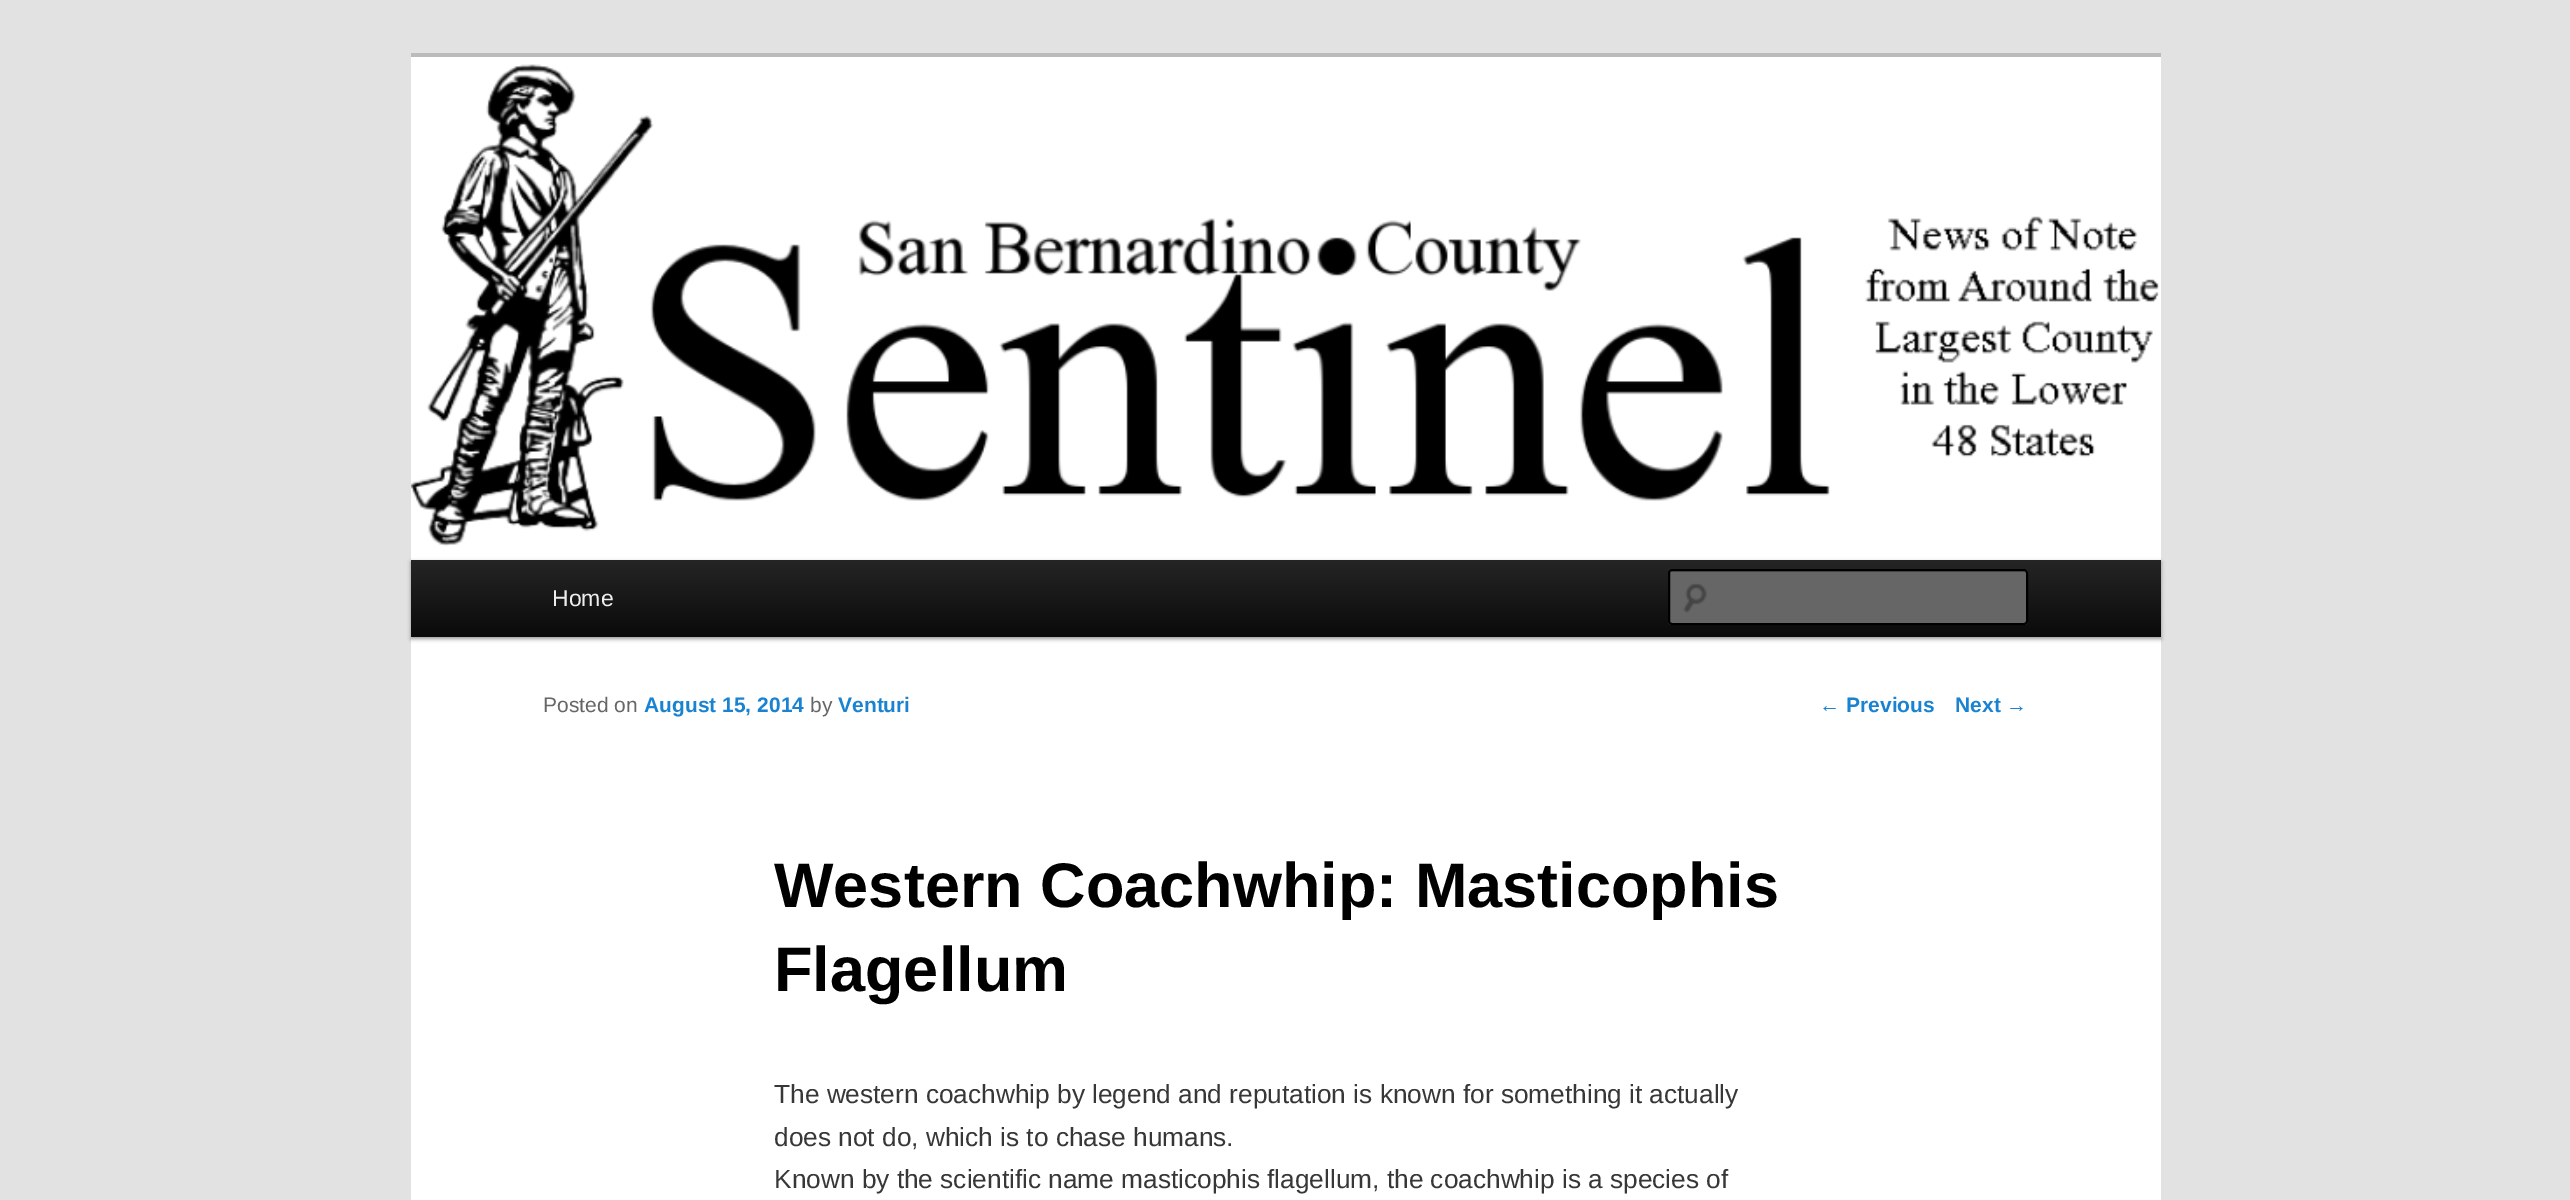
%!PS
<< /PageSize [2570 1200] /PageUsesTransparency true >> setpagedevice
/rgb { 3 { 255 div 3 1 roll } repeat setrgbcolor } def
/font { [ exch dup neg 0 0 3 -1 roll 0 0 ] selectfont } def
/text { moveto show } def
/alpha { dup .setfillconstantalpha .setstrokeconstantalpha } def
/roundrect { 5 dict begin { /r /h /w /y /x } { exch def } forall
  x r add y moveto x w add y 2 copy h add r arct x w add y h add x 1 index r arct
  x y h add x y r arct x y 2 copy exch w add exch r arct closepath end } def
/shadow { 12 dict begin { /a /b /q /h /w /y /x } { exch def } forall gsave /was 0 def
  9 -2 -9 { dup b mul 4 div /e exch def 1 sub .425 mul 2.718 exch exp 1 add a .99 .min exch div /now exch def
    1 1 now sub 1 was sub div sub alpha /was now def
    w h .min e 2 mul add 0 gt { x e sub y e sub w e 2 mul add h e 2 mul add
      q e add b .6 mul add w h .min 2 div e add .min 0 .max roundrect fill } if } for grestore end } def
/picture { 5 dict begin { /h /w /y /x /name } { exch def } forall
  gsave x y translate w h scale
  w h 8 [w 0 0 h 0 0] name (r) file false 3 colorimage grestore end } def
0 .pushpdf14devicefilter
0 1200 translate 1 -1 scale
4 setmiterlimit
226 226 226 rgb
0 0 2570 1200 rectfill
255 255 255 rgb
411 57 1750 1143 rectfill
187 187 187 rgb
411 53 1750 4 rectfill
(img_01.rgb) 411 64 1748 482 picture
0 0 0 rgb
411 562 1750 77 0 2 0.4 shadow
gsave 411 560 moveto 1750 0 rlineto 0 77 rlineto -1750 0 rlineto closepath clip newpath
<< /ShadingType 2 /ColorSpace /DeviceRGB /Coords [1286 560 1286 637] /Extend [true true] /Function << /FunctionType 2 /Domain [0 1] /C0 [0.145 0.145 0.145] /C1 [0.039 0.039 0.039] /N 1 >> >> shfill grestore
102 102 102 rgb
1668 569 360 56 4 roundrect fill
(img_02.rgb) 1683 583 24 30 picture
92 92 92 rgb
1671 572 moveto 354 0 rlineto 1 0 1 1 1 2 rcurveto 0 49 rlineto 1 -2 rlineto 0 -48 rlineto 0 -1 -1 -2 -2 -2 rcurveto -353 0 rlineto -2 0 -2 2 -2 3 rcurveto 0 -1 0 -2 1 -2 rcurveto closepath fill
0 0 0 rgb
2 setlinewidth
1669 570 358 54 3 roundrect stroke
/LiberationSans-Regular 23 font
238 238 238 rgb
(Home) 552 606 text
/LiberationSans-Regular 21 font
102 102 102 rgb
(Posted on) 543 712 text
/LiberationSans-Bold 21 font
25 130 209 rgb
(August 15, 2014) 644 712 text
/LiberationSans-Regular 21 font
102 102 102 rgb
(by) 810 712 text
/LiberationSans-Bold 21 font
25 130 209 rgb
(Venturi) 838 712 text
/LiberationSans-Bold 63 font
0 0 0 rgb
(Western Coachwhip: Masticophis) 774 907 text
(Flagellum) 774 991 text
/LiberationSans-Regular 26.25 font
55 55 55 rgb
(The western coachwhip by legend and reputation is known for something it actually) 774 1103 text
(does not do, which is to chase humans.) 774 1146 text
(Known by the scientific name masticophis flagellum, the coachwhip is a species of) 774 1188 text
/LiberationSans-Regular 21 font
25 130 209 rgb
(←) 1819 712 text
/LiberationSans-Bold 21 font
(Previous) 1846 712 text
(Next) 1955 712 text
/LiberationSans-Regular 21 font
(→) 2006 712 text
.poppdf14devicefilter showpage
